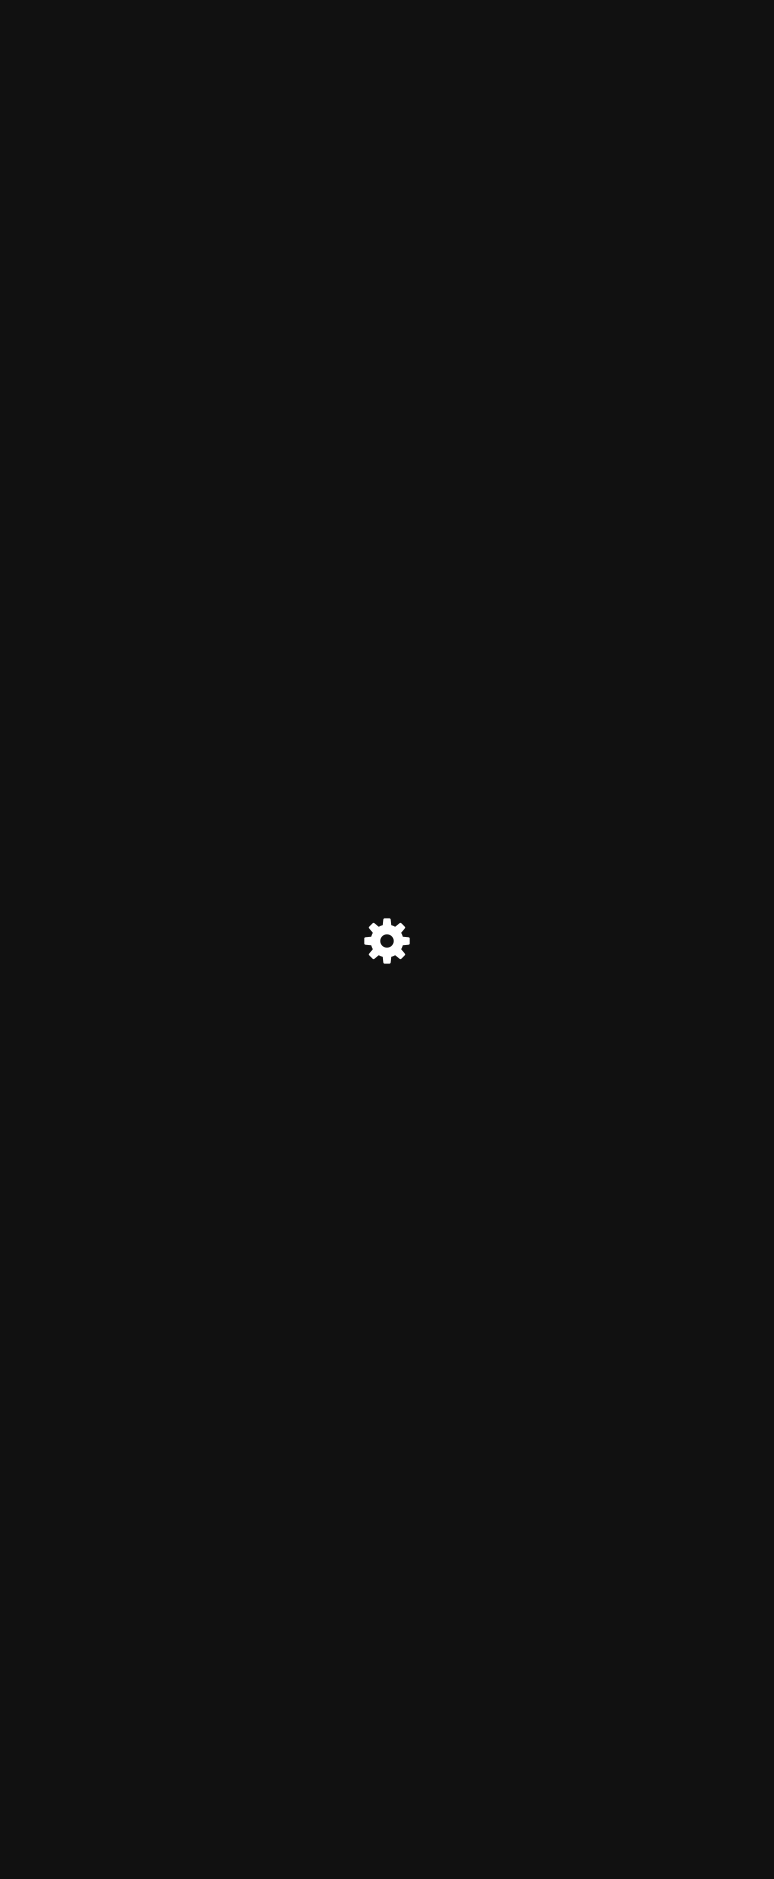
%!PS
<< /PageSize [774 1879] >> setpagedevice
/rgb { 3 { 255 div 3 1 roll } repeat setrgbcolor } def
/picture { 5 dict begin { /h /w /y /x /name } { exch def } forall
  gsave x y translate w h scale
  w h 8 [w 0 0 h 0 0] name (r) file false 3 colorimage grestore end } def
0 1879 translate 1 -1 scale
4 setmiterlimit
17 17 17 rgb
0 0 774 1879 rectfill
(img_01.rgb) 364 918 46 46 picture
showpage
